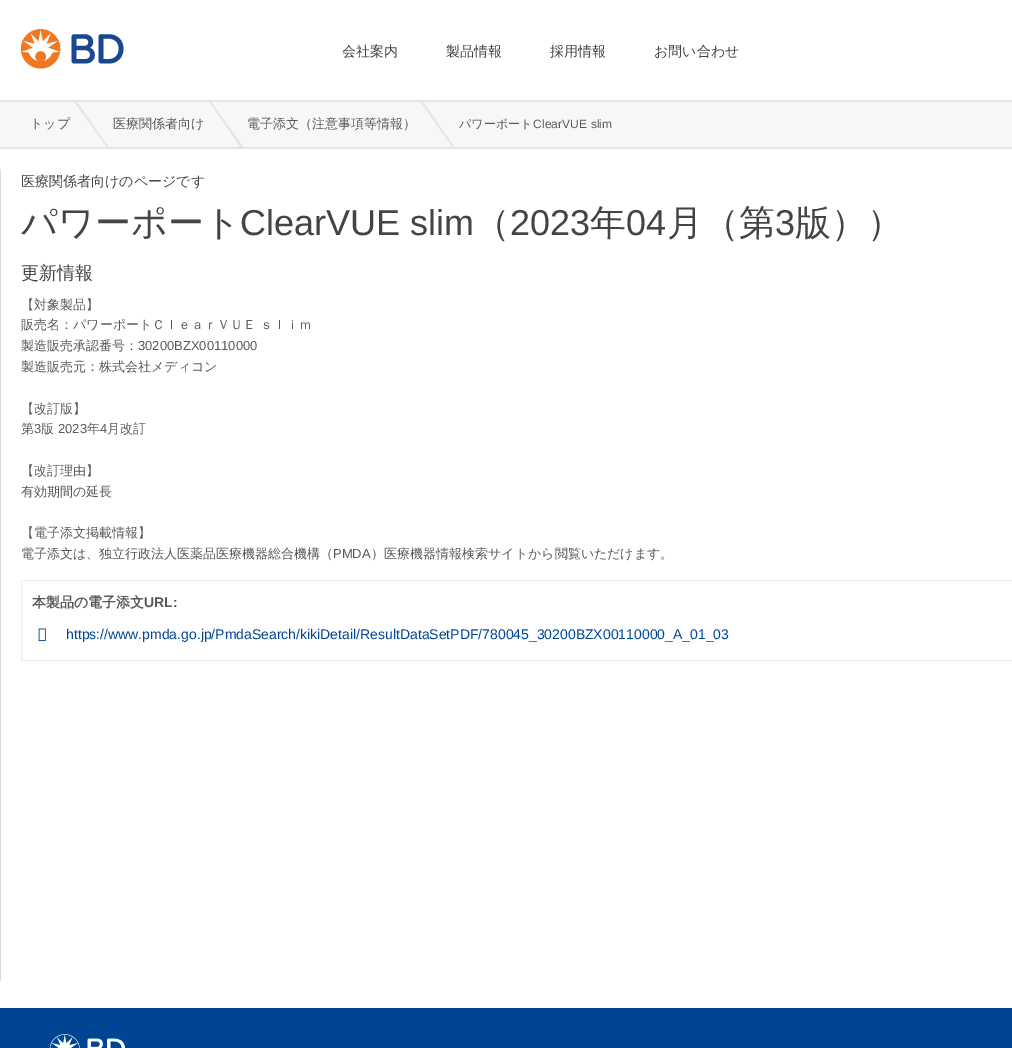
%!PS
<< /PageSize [1012 1048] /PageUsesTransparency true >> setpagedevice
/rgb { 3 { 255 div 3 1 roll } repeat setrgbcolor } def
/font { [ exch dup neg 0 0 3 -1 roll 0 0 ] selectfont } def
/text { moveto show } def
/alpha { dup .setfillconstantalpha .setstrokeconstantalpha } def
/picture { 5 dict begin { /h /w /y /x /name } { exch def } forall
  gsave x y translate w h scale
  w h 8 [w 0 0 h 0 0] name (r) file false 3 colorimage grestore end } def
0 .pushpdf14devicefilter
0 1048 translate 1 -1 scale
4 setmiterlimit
255 255 255 rgb
0 0 1012 1048 rectfill
247 247 247 rgb
0 102 1012 45 rectfill
229 229 229 rgb
0 100 1012 2 rectfill
0 147 1012 2 rectfill
73 100 moveto 2 -1 rlineto 34 49 rlineto -1 1 rlineto closepath fill
208 100 moveto 1 -1 rlineto 35 49 rlineto -2 1 rlineto closepath fill
419 100 moveto 2 -1 rlineto 34 49 rlineto -1 1 rlineto closepath fill
0.9 alpha
255 255 255 rgb
73 99 349 1 rectfill
1 alpha
(img_01.rgb) 20 29 104 40 picture
220 220 210 rgb
0 169 1 812 rectfill
239 239 239 rgb
21.5 580.5 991 80 rectstroke
(img_02.rgb) 38 628 8 13 picture
0 69 147 rgb
0 1008 1012 40 rectfill
(img_03.rgb) 50 1034 76 14 picture
/WenQuanYiZenHei-Medium 14 font
68 68 68 rgb
(会社案内) 342 56 text
(製品情報) 446 56 text
(採用情報) 550 56 text
(お問い合わせ) 654 56 text
/WenQuanYiZenHei-Medium 13 font
88 88 84 rgb
(トップ) 30 128 text
(医療関係者向け) 113 128 text
(電子添文（注意事項等情報）) 247 128 text
/WenQuanYiZenHei-Medium 12 font
459 128 moveto 0.1 0 (パワーポート) ashow
/LiberationSans-Regular 12 font
533 128 moveto 0.1 0 (ClearVUE slim) ashow
/WenQuanYiZenHei-Medium 14 font
68 68 68 rgb
(医療関係者向けのページです) 21 186 text
/WenQuanYiZenHei-Medium 36 font
(パワーポート) 21 235 text
/LiberationSans-Regular 36 font
(ClearVUE slim) 240 235 text
/WenQuanYiZenHei-Medium 36 font
(（) 474 235 text
/LiberationSans-Regular 36 font
(2023) 510 235 text
/WenQuanYiZenHei-Medium 36 font
(年) 590 235 text
/LiberationSans-Regular 36 font
(04) 626 235 text
/WenQuanYiZenHei-Medium 36 font
(月（第) 667 235 text
/LiberationSans-Regular 36 font
(3) 775 235 text
/WenQuanYiZenHei-Medium 36 font
(版））) 795 235 text
/WenQuanYiZenHei-Medium 18 font
(更新情報) 21 279 text
/WenQuanYiZenHei-Medium 13 font
88 88 84 rgb
(【対象製品】) 21 309 text
(販売名：パワーポートＣｌｅａｒＶＵＥ ｓｌｉｍ) 21 329 text
(製造販売承認番号：) 21 350 text
/LiberationSans-Regular 13 font
(30200BZX00110000) 138 350 text
/WenQuanYiZenHei-Medium 13 font
(製造販売元：株式会社メディコン) 21 371 text
(【改訂版】) 21 413 text
(第) 21 433 text
/LiberationSans-Regular 13 font
(3) 34 433 text
/WenQuanYiZenHei-Medium 13 font
(版) 41 433 text
/LiberationSans-Regular 13 font
(2023) 58 433 text
/WenQuanYiZenHei-Medium 13 font
(年) 87 433 text
/LiberationSans-Regular 13 font
(4) 100 433 text
/WenQuanYiZenHei-Medium 13 font
(月改訂) 107 433 text
(【改訂理由】) 21 475 text
(有効期間の延長) 21 496 text
(【電子添文掲載情報】) 21 537 text
(電子添文は、独立行政法人医薬品医療機器総合機構（) 21 558 text
/LiberationSans-Regular 13 font
(PMDA) 333 558 text
/WenQuanYiZenHei-Medium 13 font
(）医療機器情報検索サイトから閲覧いただけます。) 371 558 text
/WenQuanYiZenHei-Bold 14 font
(本製品の電子添文) 32 607 text
/LiberationSans-Bold 14 font
(URL:) 144 607 text
/LiberationSans-Regular 14 font
0 69 147 rgb
(https://www.pmda.go.jp/PmdaSearch/kikiDetail/ResultDataSetPDF/780045_30200BZX00110000_A_01_03) 66 639 text
.poppdf14devicefilter showpage
